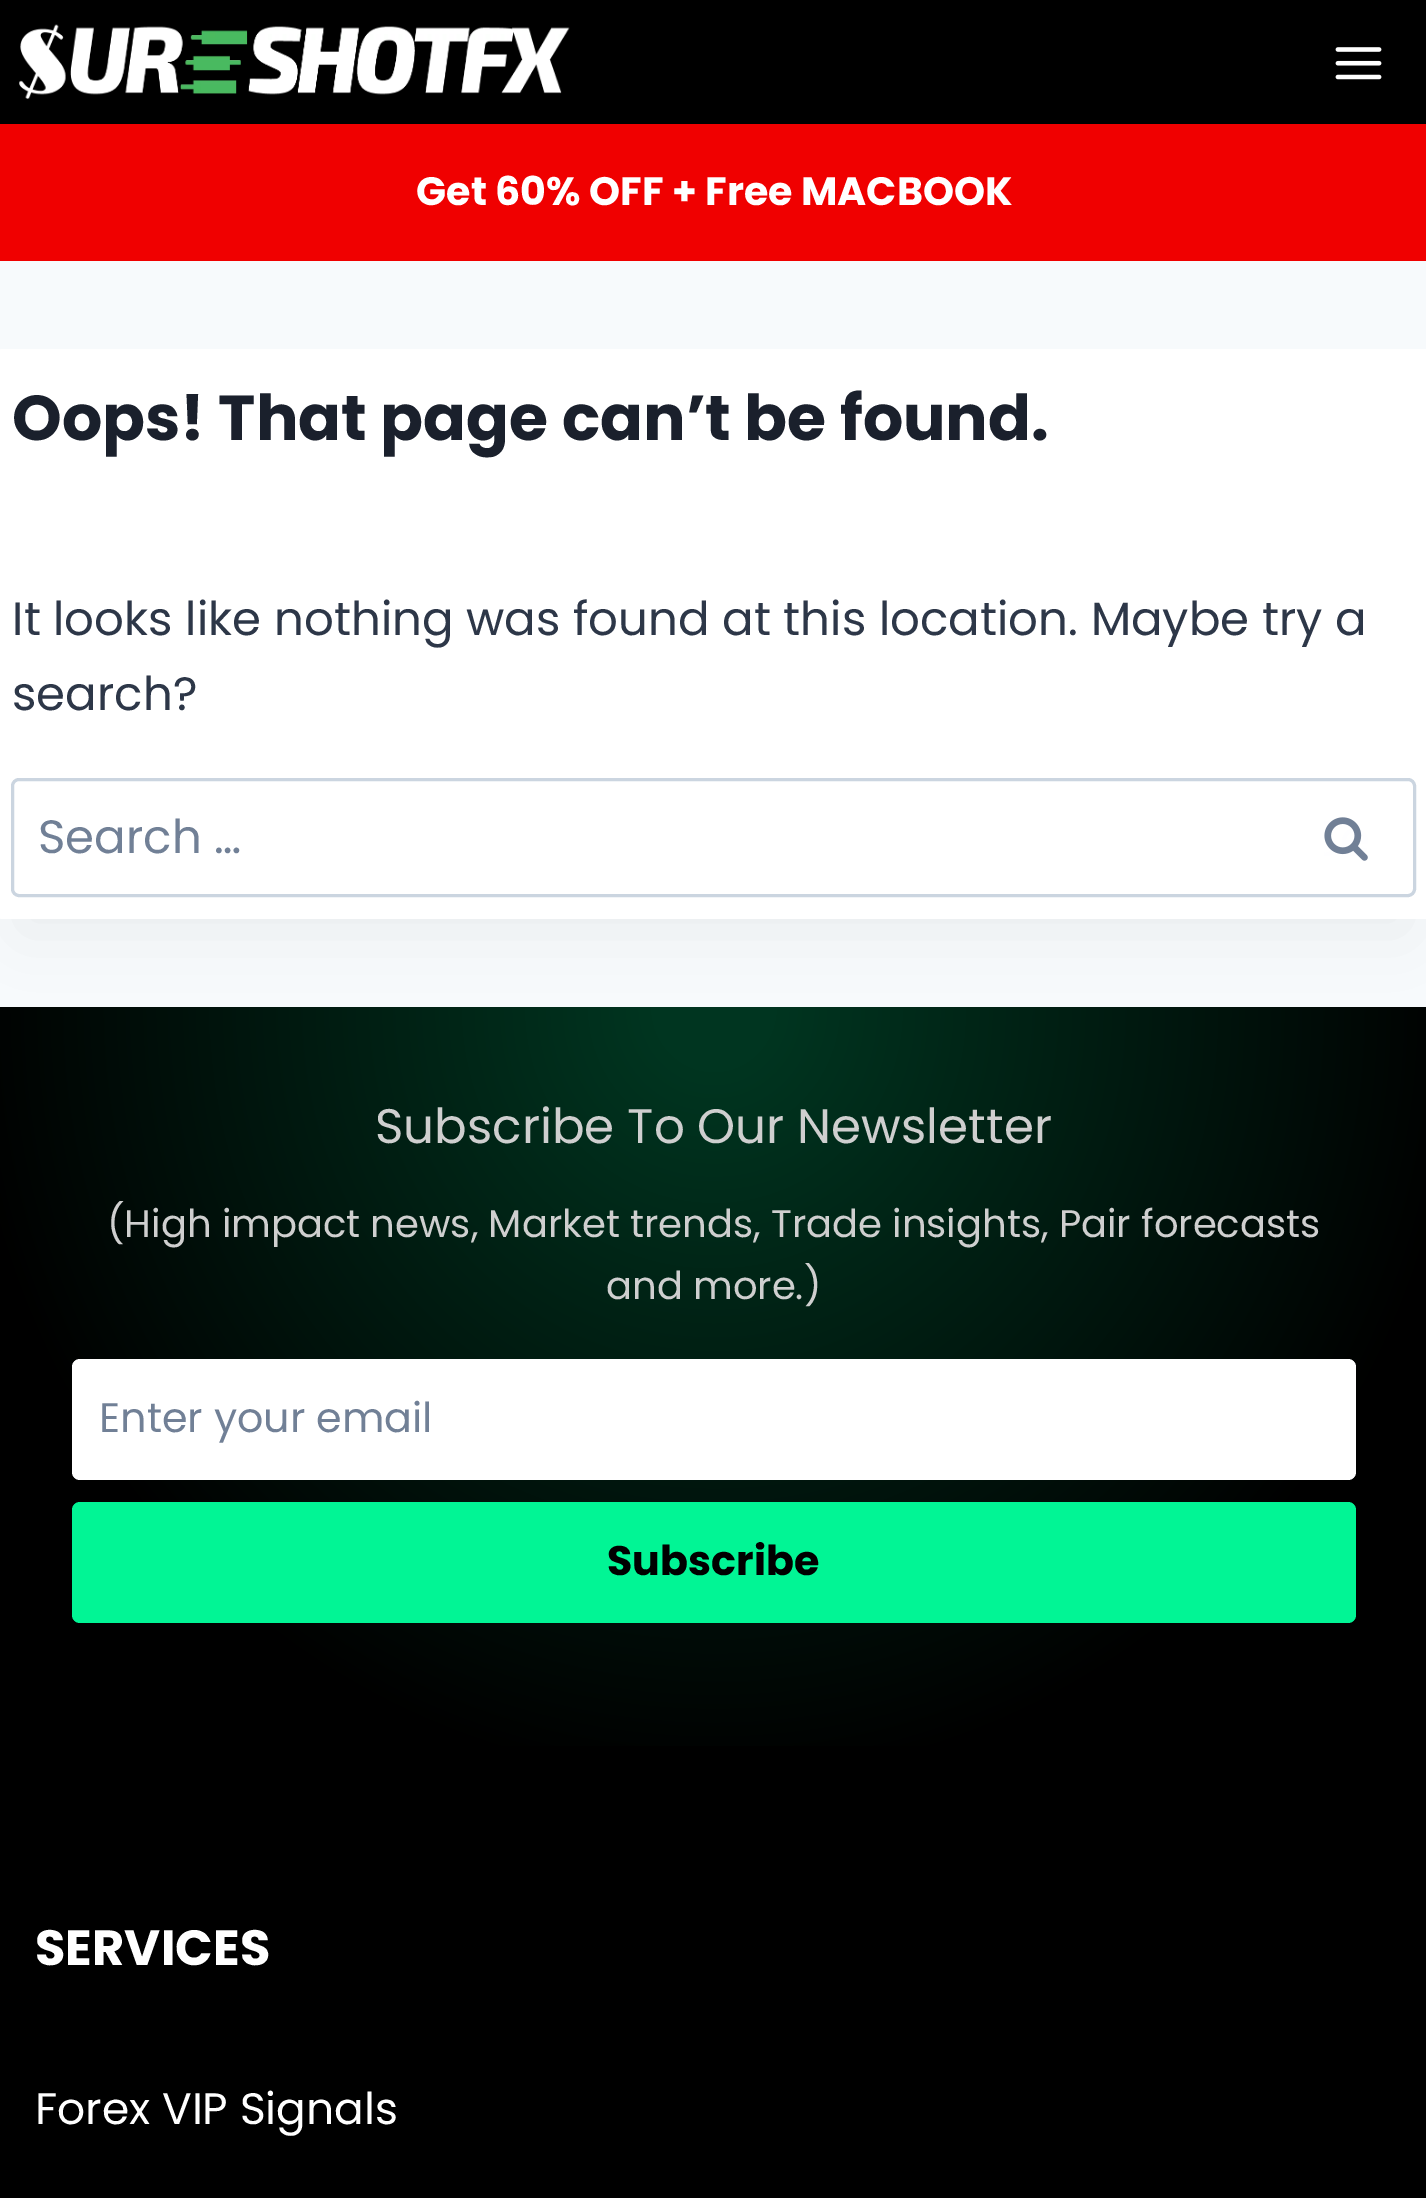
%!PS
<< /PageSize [1426 2198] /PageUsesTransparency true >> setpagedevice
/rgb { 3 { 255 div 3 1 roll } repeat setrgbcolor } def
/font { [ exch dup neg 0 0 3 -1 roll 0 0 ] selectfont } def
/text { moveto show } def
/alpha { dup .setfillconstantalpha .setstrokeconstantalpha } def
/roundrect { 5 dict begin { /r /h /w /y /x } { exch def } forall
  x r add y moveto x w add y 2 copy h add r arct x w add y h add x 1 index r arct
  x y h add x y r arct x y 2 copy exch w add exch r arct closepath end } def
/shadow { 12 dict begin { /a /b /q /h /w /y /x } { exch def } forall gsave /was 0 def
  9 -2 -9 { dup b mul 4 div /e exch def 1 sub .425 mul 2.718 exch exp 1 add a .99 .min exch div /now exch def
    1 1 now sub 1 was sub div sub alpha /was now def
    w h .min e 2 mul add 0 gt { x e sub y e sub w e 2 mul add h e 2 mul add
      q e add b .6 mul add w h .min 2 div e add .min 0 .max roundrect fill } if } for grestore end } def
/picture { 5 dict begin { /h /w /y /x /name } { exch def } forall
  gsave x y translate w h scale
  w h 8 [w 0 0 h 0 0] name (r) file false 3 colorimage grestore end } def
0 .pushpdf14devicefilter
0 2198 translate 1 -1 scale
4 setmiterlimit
247 250 252 rgb
0 0 1426 2198 rectfill
0 0 0 rgb
0 0 1426 124 rectfill
(img_01.rgb) 19 24 551 75 picture
(img_02.rgb) 1335 47 47 33 picture
240 0 0 rgb
0 124 1426 137 rectfill
gsave 0 1007 moveto 1426 0 rlineto 0 739 rlineto -1426 0 rlineto closepath clip newpath 714 1007 translate 1009 1046 scale
<< /ShadingType 3 /ColorSpace /DeviceRGB /Coords [0 0 0 0 0 1] /Extend [true true] /Function << /FunctionType 3 /Domain [0 1] /Functions [<< /FunctionType 2 /Domain [0 1] /C0 [0 0.208 0.125] /C1 [0 0.208 0.125] /N 1 >> << /FunctionType 2 /Domain [0 1] /C0 [0 0.208 0.125] /C1 [0 0 0] /N 1 >> << /FunctionType 2 /Domain [0 1] /C0 [0 0 0] /C1 [0 0 0] /N 1 >>] /Bounds [0.06 0.75] /Encode [0 1 0 1 0 1] >> >> shfill grestore
0 0 0 rgb
19 418 1389 514 0 34.5 0.05 shadow
255 255 255 rgb
-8 349 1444 570 11 roundrect fill
203 213 224 rgb
3 setlinewidth
12.5 779.5 1402 116 6.5 roundrect stroke
(img_03.rgb) 1324 817 44 44 picture
255 255 255 rgb
72 1359 1284 121 8 roundrect fill
1 245 149 rgb
72 1502 1284 121 8 roundrect fill
0 0 0 rgb
0 1746 1426 452 rectfill
/Poppins-Bold 39.6 font
255 255 255 rgb
(Get 60% OFF + Free MACBOOK) 416 205 text
/Poppins-Bold 63.25 font
26 32 44 rgb
(Oops! That page can’t be found.) 12 440 text
/Poppins-Regular 46.75 font
45 55 72 rgb
(It looks like nothing was found at this location. Maybe try a) 12 635 text
(search?) 12 710 text
113 128 150 rgb
(Search …) 38 853 text
/Poppins-Regular 48.4 font
207 207 207 rgb
(Subscribe To Our Newsletter) 375 1143 text
/Poppins-Regular 38.5 font
(\(High impact news, Market trends, Trade insights, Pair forecasts) 107 1237 text
(and more.\)) 606 1299 text
/Poppins-Regular 41.25 font
113 128 150 rgb
(Enter your email) 99 1432 text
/Poppins-Bold 41.25 font
0 0 0 rgb
(Subscribe) 607 1575 text
/Poppins-Bold 49.5 font
255 255 255 rgb
(SERVICES) 35 1965 text
/Poppins-Regular 44 font
(Forex VIP Signals) 35 2124 text
.poppdf14devicefilter showpage
